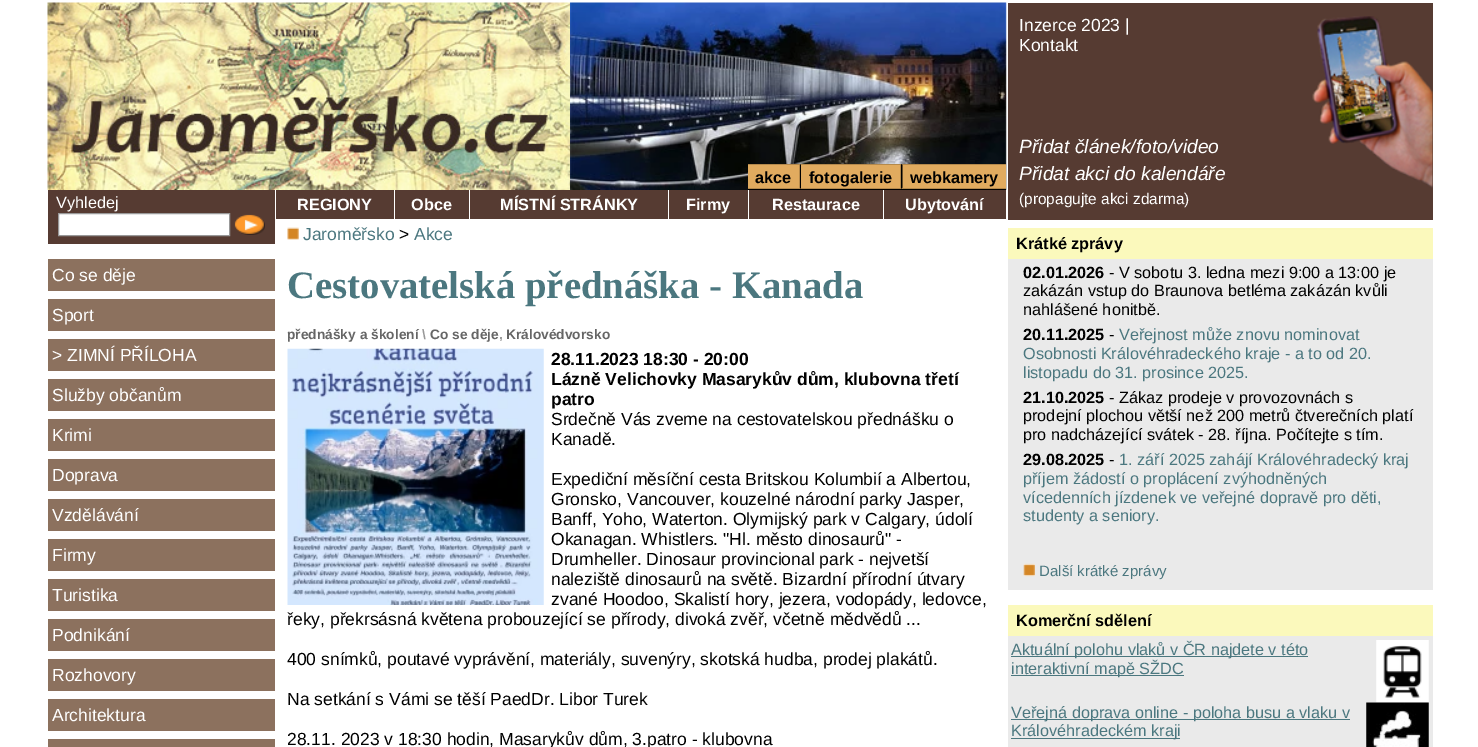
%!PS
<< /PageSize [1478 747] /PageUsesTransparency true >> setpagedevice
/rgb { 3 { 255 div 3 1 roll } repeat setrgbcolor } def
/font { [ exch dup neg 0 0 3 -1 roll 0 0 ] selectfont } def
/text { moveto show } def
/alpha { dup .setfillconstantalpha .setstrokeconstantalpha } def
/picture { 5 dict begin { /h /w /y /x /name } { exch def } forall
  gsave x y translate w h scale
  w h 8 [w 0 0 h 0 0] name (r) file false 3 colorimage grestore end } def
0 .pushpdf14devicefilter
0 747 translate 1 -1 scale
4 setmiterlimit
255 255 255 rgb
0 0 1478 747 rectfill
(img_01.rgb) 47 2 523 188 picture
86 59 50 rgb
48 190 227 54 rectfill
255 255 255 rgb
58.5 213.5 moveto 171 0 rlineto 0 22 rlineto -171 0 rlineto closepath gsave fill grestore
153 153 153 rgb
stroke
(img_02.rgb) 234 214 31 21 picture
140 113 94 rgb
48 259 227 32 rectfill
48 299 227 32 rectfill
48 339 227 32 rectfill
48 379 227 32 rectfill
48 419 227 32 rectfill
48 459 227 32 rectfill
48 499 227 32 rectfill
48 539 227 32 rectfill
48 579 227 32 rectfill
48 619 227 32 rectfill
48 659 227 32 rectfill
48 699 227 32 rectfill
48 739 227 8 rectfill
(img_03.rgb) 570 2 437 188 picture
0 0 0 rgb
748 189 258 1 rectfill
225 171 95 rgb
748 164 258 25 rectfill
180 137 76 rgb
748 164 moveto 52 0 rlineto -1 1 rlineto -51 0 rlineto closepath fill
0.2 alpha
0 0 0 rgb
800 164 moveto 0 25 rlineto -1 -1.5 rlineto 0 -22.5 rlineto closepath fill
800 189 moveto -52 0 rlineto 0 -1 rlineto 51 0 rlineto closepath fill
1 alpha
180 137 76 rgb
800 164 moveto 101 0 rlineto -1 1 rlineto -99 0 rlineto closepath fill
0.2 alpha
0 0 0 rgb
901 164 moveto 0 25 rlineto -1 -1.5 rlineto 0 -22.5 rlineto closepath fill
901 189 moveto -101 0 rlineto 1 -1 rlineto 99 0 rlineto closepath fill
1 alpha
800 189 moveto 0 -25 rlineto 1 1 rlineto 0 22.5 rlineto closepath fill
180 137 76 rgb
901 164 moveto 105 0 rlineto 0 1 rlineto -104 0 rlineto closepath fill
1006 189 moveto -105 0 rlineto 1 -1 rlineto 104 0 rlineto closepath fill
0 0 0 rgb
901 189 moveto 0 -25 rlineto 1.5 1 rlineto 0 22.5 rlineto closepath fill
86 59 50 rgb
276 190 118 29 rectfill
395 190 74 29 rectfill
470 190 198 29 rectfill
669 190 79 29 rectfill
749 190 134 29 rectfill
884 190 122 29 rectfill
1008 3 425 217 rectfill
(img_04.rgb) 1312 16 121 172 picture
(img_05.rgb) 287 227 12 13 picture
(img_06.rgb) 287 348 257 257 picture
251 249 188 rgb
1008 228 425 31 rectfill
234 234 234 rgb
1008 259 425 331 rectfill
(img_07.rgb) 1023 563 12 14 picture
251 249 188 rgb
1008 605 425 31 rectfill
234 234 234 rgb
1008 636 425 111 rectfill
75 119 127 rgb
1011 656 297 1 rectfill
(img_08.rgb) 1376 640 53 63 picture
1011 675 173 1 rectfill
1011 719 339 1 rectfill
(img_09.rgb) 1366 702 63 45 picture
1011 738 169 1 rectfill
/LiberationSans-Regular 16.25 font
255 255 255 rgb
(Vyhledej) 56 208 text
/LiberationSans-Regular 17.5 font
(Co se děje) 52 281 text
(Sport) 52 321 text
(> ZIMNÍ PŘÍLOHA) 52 361 text
(Služby občanům) 52 401 text
(Krimi) 52 441 text
(Doprava) 52 481 text
(Vzdělávání) 52 521 text
(Firmy) 52 561 text
(Turistika) 52 601 text
(Podnikání) 52 641 text
(Rozhovory) 52 681 text
(Architektura) 52 721 text
/LiberationSans-Bold 16.25 font
0 0 0 rgb
(akce) 755 183 text
(fotogalerie) 809 183 text
(webkamery) 910 183 text
255 255 255 rgb
(REGIONY) 297 210 text
(Obce) 411 210 text
(MÍSTNÍ STRÁNKY) 500 210 text
(Firmy) 686 210 text
(Restaurace) 772 210 text
(Ubytování) 905 210 text
/LiberationSans-Regular 17.5 font
(Inzerce 2023 |) 1019 31 text
(Kontakt) 1019 51 text
/LiberationSans-Italic 19.25 font
(Přidat článek/foto/video) 1019 153 text
(Přidat akci do kalendáře) 1019 180 text
/LiberationSans-Regular 15.4 font
(\(propagujte akci zdarma\)) 1019 204 text
/LiberationSans-Regular 17.5 font
75 119 127 rgb
(Jaroměřsko) 303 240 text
0 0 0 rgb
(>) 399 240 text
75 119 127 rgb
(Akce) 414 240 text
/LiberationSerif-Bold 38.75 font
(Cestovatelská přednáška - Kanada) 287 298 text
/LiberationSans-Bold 13.75 font
102 102 102 rgb
(přednášky a školení) 287 339 text
153 153 153 rgb
(\\) 422 339 text
102 102 102 rgb
(Co se děje) 430 339 text
153 153 153 rgb
(,) 499 339 text
102 102 102 rgb
(Královédvorsko) 506 339 text
/LiberationSans-Bold 17.5 font
0 0 0 rgb
(28.11.2023 18:30 - 20:00) 551 365 text
(Lázně Velichovky Masarykův dům, klubovna třetí) 551 385 text
(patro) 551 405 text
/LiberationSans-Regular 17.5 font
(Srdečně Vás zveme na cestovatelskou přednášku o) 551 425 text
(Kanadě.) 551 445 text
(Expediční měsíční cesta Britskou Kolumbií a Albertou,) 551 485 text
(Gronsko, Vancouver, kouzelné národní parky Jasper,) 551 505 text
(Banff, Yoho, Waterton. Olymijský park v Calgary, údolí) 551 525 text
(Okanagan. Whistlers. "Hl. město dinosaurů" -) 551 545 text
(Drumheller. Dinosaur provincional park - nejvetší) 551 565 text
(naleziště dinosaurů na světě. Bizardní přírodní útvary) 551 585 text
(zvané Hoodoo, Skalistí hory, jezera, vodopády, ledovce,) 551 605 text
(řeky, překrsásná květena probouzející se přírody, divoká zvěř, včetně mědvědů ...) 287 625 text
(400 snímků, poutavé vyprávění, materiály, suvenýry, skotská hudba, prodej plakátů.) 287 665 text
(Na setkání s Vámi se těší PaedDr. Libor Turek) 287 705 text
(28.11. 2023 v 18:30 hodin, Masarykův dům, 3.patro - klubovna) 287 745 text
/LiberationSans-Bold 16.25 font
(Krátké zprávy) 1016 249 text
(02.01.2026) 1023 278 text
/LiberationSans-Regular 16.25 font
(- V sobotu 3. ledna mezi 9:00 a 13:00 je) 1109 278 text
(zakázán vstup do Braunova betléma zakázán kvůli) 1023 296 text
(nahlášené honitbě.) 1023 315 text
/LiberationSans-Bold 16.25 font
(20.11.2025) 1023 340 text
/LiberationSans-Regular 16.25 font
(-) 1109 340 text
75 119 127 rgb
(Veřejnost může znovu nominovat) 1119 340 text
(Osobnosti Královéhradeckého kraje - a to od 20.) 1023 359 text
(listopadu do 31. prosince 2025.) 1023 378 text
/LiberationSans-Bold 16.25 font
0 0 0 rgb
(21.10.2025) 1023 403 text
/LiberationSans-Regular 16.25 font
(- Zákaz prodeje v provozovnách s) 1109 403 text
(prodejní plochou větší než 200 metrů čtverečních platí) 1023 421 text
(pro nadcházející svátek - 28. října. Počítejte s tím.) 1023 440 text
/LiberationSans-Bold 16.25 font
(29.08.2025) 1023 465 text
/LiberationSans-Regular 16.25 font
(-) 1109 465 text
75 119 127 rgb
(1. září 2025 zahájí Královéhradecký kraj) 1119 465 text
(příjem žádostí o proplácení zvýhodněných) 1023 484 text
(vícedenních jízdenek ve veřejné dopravě pro děti,) 1023 503 text
(studenty a seniory.) 1023 521 text
/LiberationSans-Regular 15 font
(Další krátké zprávy) 1039 576 text
/LiberationSans-Bold 16.25 font
0 0 0 rgb
(Komerční sdělení) 1016 626 text
/LiberationSans-Regular 16.25 font
75 119 127 rgb
(Aktuální polohu vlaků v ČR najdete v této) 1011 655 text
(interaktivní mapě SŽDC) 1011 674 text
(Veřejná doprava online - poloha busu a vlaku v) 1011 718 text
(Královéhradeckém kraji) 1011 736 text
.poppdf14devicefilter showpage
